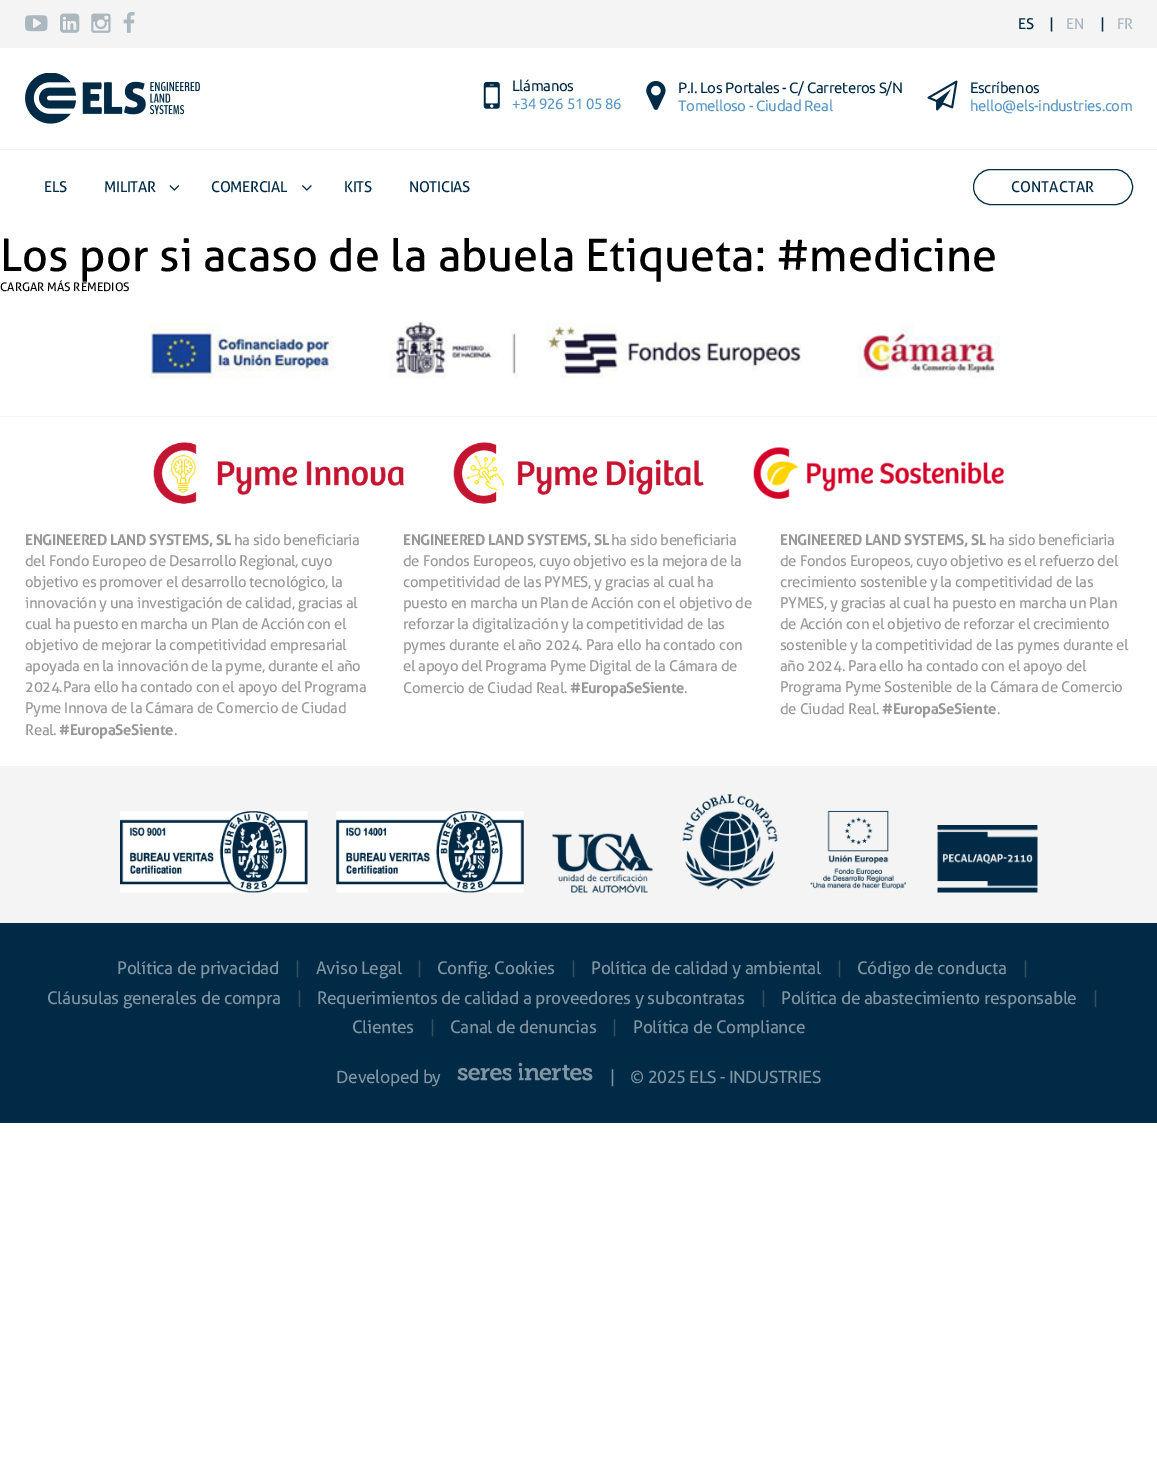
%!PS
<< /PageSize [1157 1480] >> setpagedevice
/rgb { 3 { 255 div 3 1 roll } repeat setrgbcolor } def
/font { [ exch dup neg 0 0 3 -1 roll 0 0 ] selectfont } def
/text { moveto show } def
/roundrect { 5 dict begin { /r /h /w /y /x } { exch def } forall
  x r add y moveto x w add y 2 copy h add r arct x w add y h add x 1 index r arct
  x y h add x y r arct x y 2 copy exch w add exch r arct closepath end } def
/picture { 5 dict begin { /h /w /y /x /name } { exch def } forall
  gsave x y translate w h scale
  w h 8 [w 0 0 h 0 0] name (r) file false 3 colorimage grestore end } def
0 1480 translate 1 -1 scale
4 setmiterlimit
255 255 255 rgb
0 0 1157 1480 rectfill
244 244 244 rgb
0 0 1157 48 rectfill
(img_01.rgb) 25 15 23 17 picture
(img_02.rgb) 60 13 20 20 picture
(img_03.rgb) 91 13 20 20 picture
(img_04.rgb) 123 12 12 21 picture
(img_05.rgb) 25 73 175 51 picture
(img_06.rgb) 483 81 17 28 picture
(img_07.rgb) 646 81 20 29 picture
(img_08.rgb) 927 80 31 31 picture
0 149 1157 1 rectfill
(img_09.rgb) 169 185 11 6 picture
(img_10.rgb) 302 185 10 6 picture
0 42 69 rgb
973.5 169.5 159 35 17.5 roundrect stroke
244 244 244 rgb
0 416 1157 1 rectfill
(img_11.rgb) 149 322 851 57 picture
(img_12.rgb) 153 442 251 62 picture
(img_13.rgb) 453 442 251 62 picture
(img_14.rgb) 753 447 251 52 picture
0 766 1157 157 rectfill
(img_15.rgb) 120 811 188 82 picture
(img_16.rgb) 336 811 188 82 picture
(img_17.rgb) 552 833 101 60 picture
(img_18.rgb) 682 794 96 96 picture
(img_19.rgb) 810 810 97 79 picture
(img_20.rgb) 937 825 101 68 picture
0 42 69 rgb
0 923 1157 200 rectfill
(img_21.rgb) 457 1062 136 19 picture
/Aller-Regular 15 font
1018 29 moveto -0.38 0 (ES) ashow
1049 29 moveto -0.38 0 (|) ashow
171 183 192 rgb
1066 29 moveto -0.38 0 (EN) ashow
0 42 69 rgb
1100 29 moveto -0.38 0 (|) ashow
171 183 192 rgb
1117 29 moveto -0.38 0 (FR) ashow
/Ubuntu-Regular 15 font
0 42 69 rgb
512 91 moveto -0.38 0 (Llámanos) ashow
91 151 198 rgb
512 109 moveto -0.38 0 (+34 926 51 05 86) ashow
0 42 69 rgb
678 93 moveto -0.38 0 (P.I. Los Portales - C/ Carreteros S/N) ashow
91 151 198 rgb
678 111 moveto -0.38 0 (Tomelloso - Ciudad Real) ashow
0 42 69 rgb
970 93 moveto -0.38 0 (Escríbenos) ashow
91 151 198 rgb
970 111 moveto -0.38 0 (hello@els-industries.com) ashow
/Aller-Regular 15 font
0 42 69 rgb
44 192 moveto -0.38 0 (ELS) ashow
104 192 moveto -0.38 0 (MILITAR) ashow
211 192 moveto -0.38 0 (COMERCIAL) ashow
344 192 moveto -0.38 0 (KITS) ashow
409 192 moveto -0.38 0 (NOTICIAS) ashow
(CONTACTAR) 1011 192 text
/Aller-Regular 45 font
0 0 0 rgb
(Los por si acaso de la abuela) 0 271 text
(Etiqueta: #medicine) 585 271 text
/Aller-Regular 11.9 font
(CARGAR MÁS REMEDIOS) 0 291 text
/Aller-Bold 15 font
153 153 153 rgb
25 545 moveto -0.38 0 (ENGINEERED LAND SYSTEMS, SL) ashow
/Aller-Regular 15 font
234 545 moveto -0.38 0 (ha sido beneficiaria) ashow
25 566 moveto -0.38 0 (del Fondo Europeo de Desarrollo Regional, cuyo) ashow
25 587 moveto -0.38 0 (objetivo es promover el desarrollo tecnológico, la) ashow
25 608 moveto -0.38 0 (innovación y una investigación de calidad, gracias al) ashow
25 629 moveto -0.38 0 (cual ha puesto en marcha un Plan de Acción con el) ashow
25 650 moveto -0.38 0 (objetivo de mejorar la competitividad empresarial) ashow
25 671 moveto -0.38 0 (apoyada en la innovación de la pyme, durante el año) ashow
25 692 moveto -0.38 0 (2024.Para ello ha contado con el apoyo del Programa) ashow
25 713 moveto -0.38 0 (Pyme Innova de la Cámara de Comercio de Ciudad) ashow
25 735 moveto -0.38 0 (Real.) ashow
/Aller-Bold 15 font
59 735 moveto -0.38 0 (#EuropaSeSiente) ashow
/Aller-Regular 15 font
174 735 moveto -0.38 0 (.) ashow
/Aller-Bold 15 font
403 545 moveto -0.38 0 (ENGINEERED LAND SYSTEMS, SL) ashow
/Aller-Regular 15 font
611 545 moveto -0.38 0 (ha sido beneficiaria) ashow
403 566 moveto -0.38 0 (de Fondos Europeos, cuyo objetivo es la mejora de la) ashow
403 587 moveto -0.38 0 (competitividad de las PYMES, y gracias al cual ha) ashow
403 608 moveto -0.38 0 (puesto en marcha un Plan de Acción con el objetivo de) ashow
403 629 moveto -0.38 0 (reforzar la digitalización y la competitividad de las) ashow
403 650 moveto -0.38 0 (pymes durante el año 2024. Para ello ha contado con) ashow
403 671 moveto -0.38 0 (el apoyo del Programa Pyme Digital de la Cámara de) ashow
403 693 moveto -0.38 0 (Comercio de Ciudad Real.) ashow
/Aller-Bold 15 font
570 693 moveto -0.38 0 (#EuropaSeSiente) ashow
/Aller-Regular 15 font
684 693 moveto -0.38 0 (.) ashow
/Aller-Bold 15 font
780 545 moveto -0.38 0 (ENGINEERED LAND SYSTEMS, SL) ashow
/Aller-Regular 15 font
989 545 moveto -0.38 0 (ha sido beneficiaria) ashow
780 566 moveto -0.38 0 (de Fondos Europeos, cuyo objetivo es el refuerzo del) ashow
780 587 moveto -0.38 0 (crecimiento sostenible y la competitividad de las) ashow
780 608 moveto -0.38 0 (PYMES, y gracias al cual ha puesto en marcha un Plan) ashow
780 629 moveto -0.38 0 (de Acción con el objetivo de reforzar el crecimiento) ashow
780 650 moveto -0.38 0 (sostenible y la competitividad de las pymes durante el) ashow
780 671 moveto -0.38 0 (año 2024. Para ello ha contado con el apoyo del) ashow
780 692 moveto -0.38 0 (Programa Pyme Sostenible de la Cámara de Comercio) ashow
780 714 moveto -0.38 0 (de Ciudad Real.) ashow
/Aller-Bold 15 font
882 714 moveto -0.38 0 (#EuropaSeSiente) ashow
/Aller-Regular 15 font
997 714 moveto -0.38 0 (.) ashow
/Aller-Regular 17.5 font
128 149 162 rgb
117 974 moveto -0.38 0 (Política de privacidad) ashow
/Ubuntu-Regular 17.5 font
54 78 97 rgb
295 974 moveto -0.38 0 (|) ashow
/Aller-Regular 17.5 font
128 149 162 rgb
316 974 moveto -0.38 0 (Aviso Legal) ashow
/Ubuntu-Regular 17.5 font
54 78 97 rgb
417 974 moveto -0.38 0 (|) ashow
/Aller-Regular 17.5 font
128 149 162 rgb
437 974 moveto -0.38 0 (Config. Cookies) ashow
/Ubuntu-Regular 17.5 font
54 78 97 rgb
571 974 moveto -0.38 0 (|) ashow
/Aller-Regular 17.5 font
128 149 162 rgb
591 974 moveto -0.38 0 (Política de calidad y ambiental) ashow
/Ubuntu-Regular 17.5 font
54 78 97 rgb
837 974 moveto -0.38 0 (|) ashow
/Aller-Regular 17.5 font
128 149 162 rgb
857 974 moveto -0.38 0 (Código de conducta) ashow
/Ubuntu-Regular 17.5 font
54 78 97 rgb
1023 974 moveto -0.38 0 (|) ashow
/Aller-Regular 17.5 font
128 149 162 rgb
47 1004 moveto -0.38 0 (Cláusulas generales de compra) ashow
/Ubuntu-Regular 17.5 font
54 78 97 rgb
297 1004 moveto -0.38 0 (|) ashow
/Aller-Regular 17.5 font
128 149 162 rgb
317 1004 moveto -0.38 0 (Requerimientos de calidad a proveedores y subcontratas) ashow
/Ubuntu-Regular 17.5 font
54 78 97 rgb
761 1004 moveto -0.38 0 (|) ashow
/Aller-Regular 17.5 font
128 149 162 rgb
781 1004 moveto -0.38 0 (Política de abastecimiento responsable) ashow
/Ubuntu-Regular 17.5 font
54 78 97 rgb
1093 1004 moveto -0.38 0 (|) ashow
/Aller-Regular 17.5 font
128 149 162 rgb
352 1033 moveto -0.38 0 (Clientes) ashow
/Ubuntu-Regular 17.5 font
54 78 97 rgb
430 1033 moveto -0.38 0 (|) ashow
/Aller-Regular 17.5 font
128 149 162 rgb
450 1033 moveto -0.38 0 (Canal de denuncias) ashow
/Ubuntu-Regular 17.5 font
54 78 97 rgb
612 1033 moveto -0.38 0 (|) ashow
/Aller-Regular 17.5 font
128 149 162 rgb
633 1033 moveto -0.38 0 (Política de Compliance) ashow
/Ubuntu-Regular 17.5 font
336 1083 moveto -0.38 0 (Developed by) ashow
610 1083 moveto -0.38 0 (|) ashow
630 1083 moveto -0.38 0 (© 2025 ELS - INDUSTRIES) ashow
showpage
